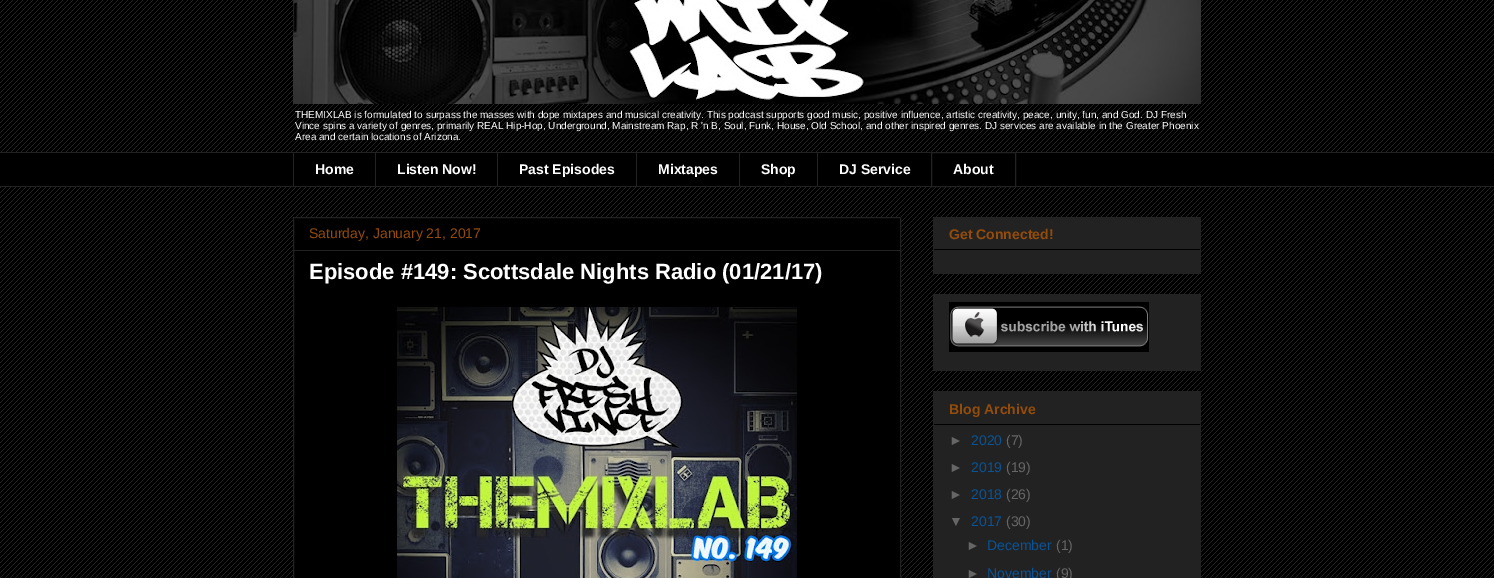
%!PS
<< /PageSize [1494 578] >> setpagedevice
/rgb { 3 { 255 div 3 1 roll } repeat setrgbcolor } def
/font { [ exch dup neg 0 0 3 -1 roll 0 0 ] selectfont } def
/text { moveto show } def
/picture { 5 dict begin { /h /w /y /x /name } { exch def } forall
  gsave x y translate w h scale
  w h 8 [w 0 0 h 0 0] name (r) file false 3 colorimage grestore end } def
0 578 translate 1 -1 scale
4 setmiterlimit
0 0 0 rgb
0 0 1494 578 rectfill
(img_01.rgb) 0 0 1494 578 picture
(img_02.rgb) 293 0 908 104 picture
0 153 1494 33 rectfill
34 34 34 rgb
0 152 1494 1 rectfill
293 152 1 35 rectfill
375 152 1 35 rectfill
497 152 1 35 rectfill
636 152 1 35 rectfill
739 152 1 35 rectfill
817 152 1 35 rectfill
931.5 152.5 84 34 rectstroke
0 186 1494 1 rectfill
0 0 0 rgb
293.5 217.5 moveto 607 0 rlineto 0 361 rlineto -607 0 rlineto closepath gsave fill grestore
34 34 34 rgb
stroke
294 250 606 1 rectfill
(img_03.rgb) 397 307 400 271 picture
933 217 268 57 rectfill
0 0 0 rgb
934 249 266 1 rectfill
34 34 34 rgb
933 294 268 77 rectfill
(img_04.rgb) 949 302 200 50 picture
933 391 268 187 rectfill
0 0 0 rgb
934 424 266 1 rectfill
/LiberationSans-Regular 10 font
255 255 255 rgb
(THEMIXLAB is formulated to surpass the masses with dope mixtapes and musical creativity. This podcast supports good music, positive influence, artistic creativity, peace, unity, fun, and God. DJ Fresh) 295 118 text
(Vince spins a variety of genres, primarily REAL Hip-Hop, Underground, Mainstream Rap, R 'n B, Soul, Funk, House, Old School, and other inspired genres. DJ services are available in the Greater Phoenix) 295 129 text
(Area and certain locations of Arizona.) 295 140 text
/LiberationSans-Bold 14 font
(Home) 315 174 text
(Listen Now!) 397 174 text
(Past Episodes) 519 174 text
(Mixtapes) 658 174 text
(Shop) 761 174 text
(DJ Service) 839 174 text
(About) 953 174 text
/LiberationSans-Regular 14 font
148 76 11 rgb
(Saturday, January 21, 2017) 309 238 text
/LiberationSans-Bold 22 font
255 255 255 rgb
(Episode #149: Scottsdale Nights Radio \(01/21/17\)) 309 279 text
/LiberationSans-Bold 14 font
148 76 11 rgb
(Get Connected!) 949 239 text
(Blog Archive) 949 414 text
/LiberationSans-Regular 14 font
102 102 102 rgb
(►) 949 445 text
11 83 148 rgb
(2020) 971 445 text
102 102 102 rgb
(\(7\)) 1006 445 text
(►) 949 472 text
11 83 148 rgb
(2019) 971 472 text
102 102 102 rgb
(\(19\)) 1006 472 text
(►) 949 499 text
11 83 148 rgb
(2018) 971 499 text
102 102 102 rgb
(\(26\)) 1006 499 text
(▼) 949 526 text
11 83 148 rgb
(2017) 971 526 text
102 102 102 rgb
(\(30\)) 1006 526 text
(►) 966 550 text
11 83 148 rgb
(December) 987 550 text
102 102 102 rgb
(\(1\)) 1056 550 text
(►) 966 578 text
11 83 148 rgb
(November) 987 578 text
102 102 102 rgb
(\(9\)) 1056 578 text
showpage
